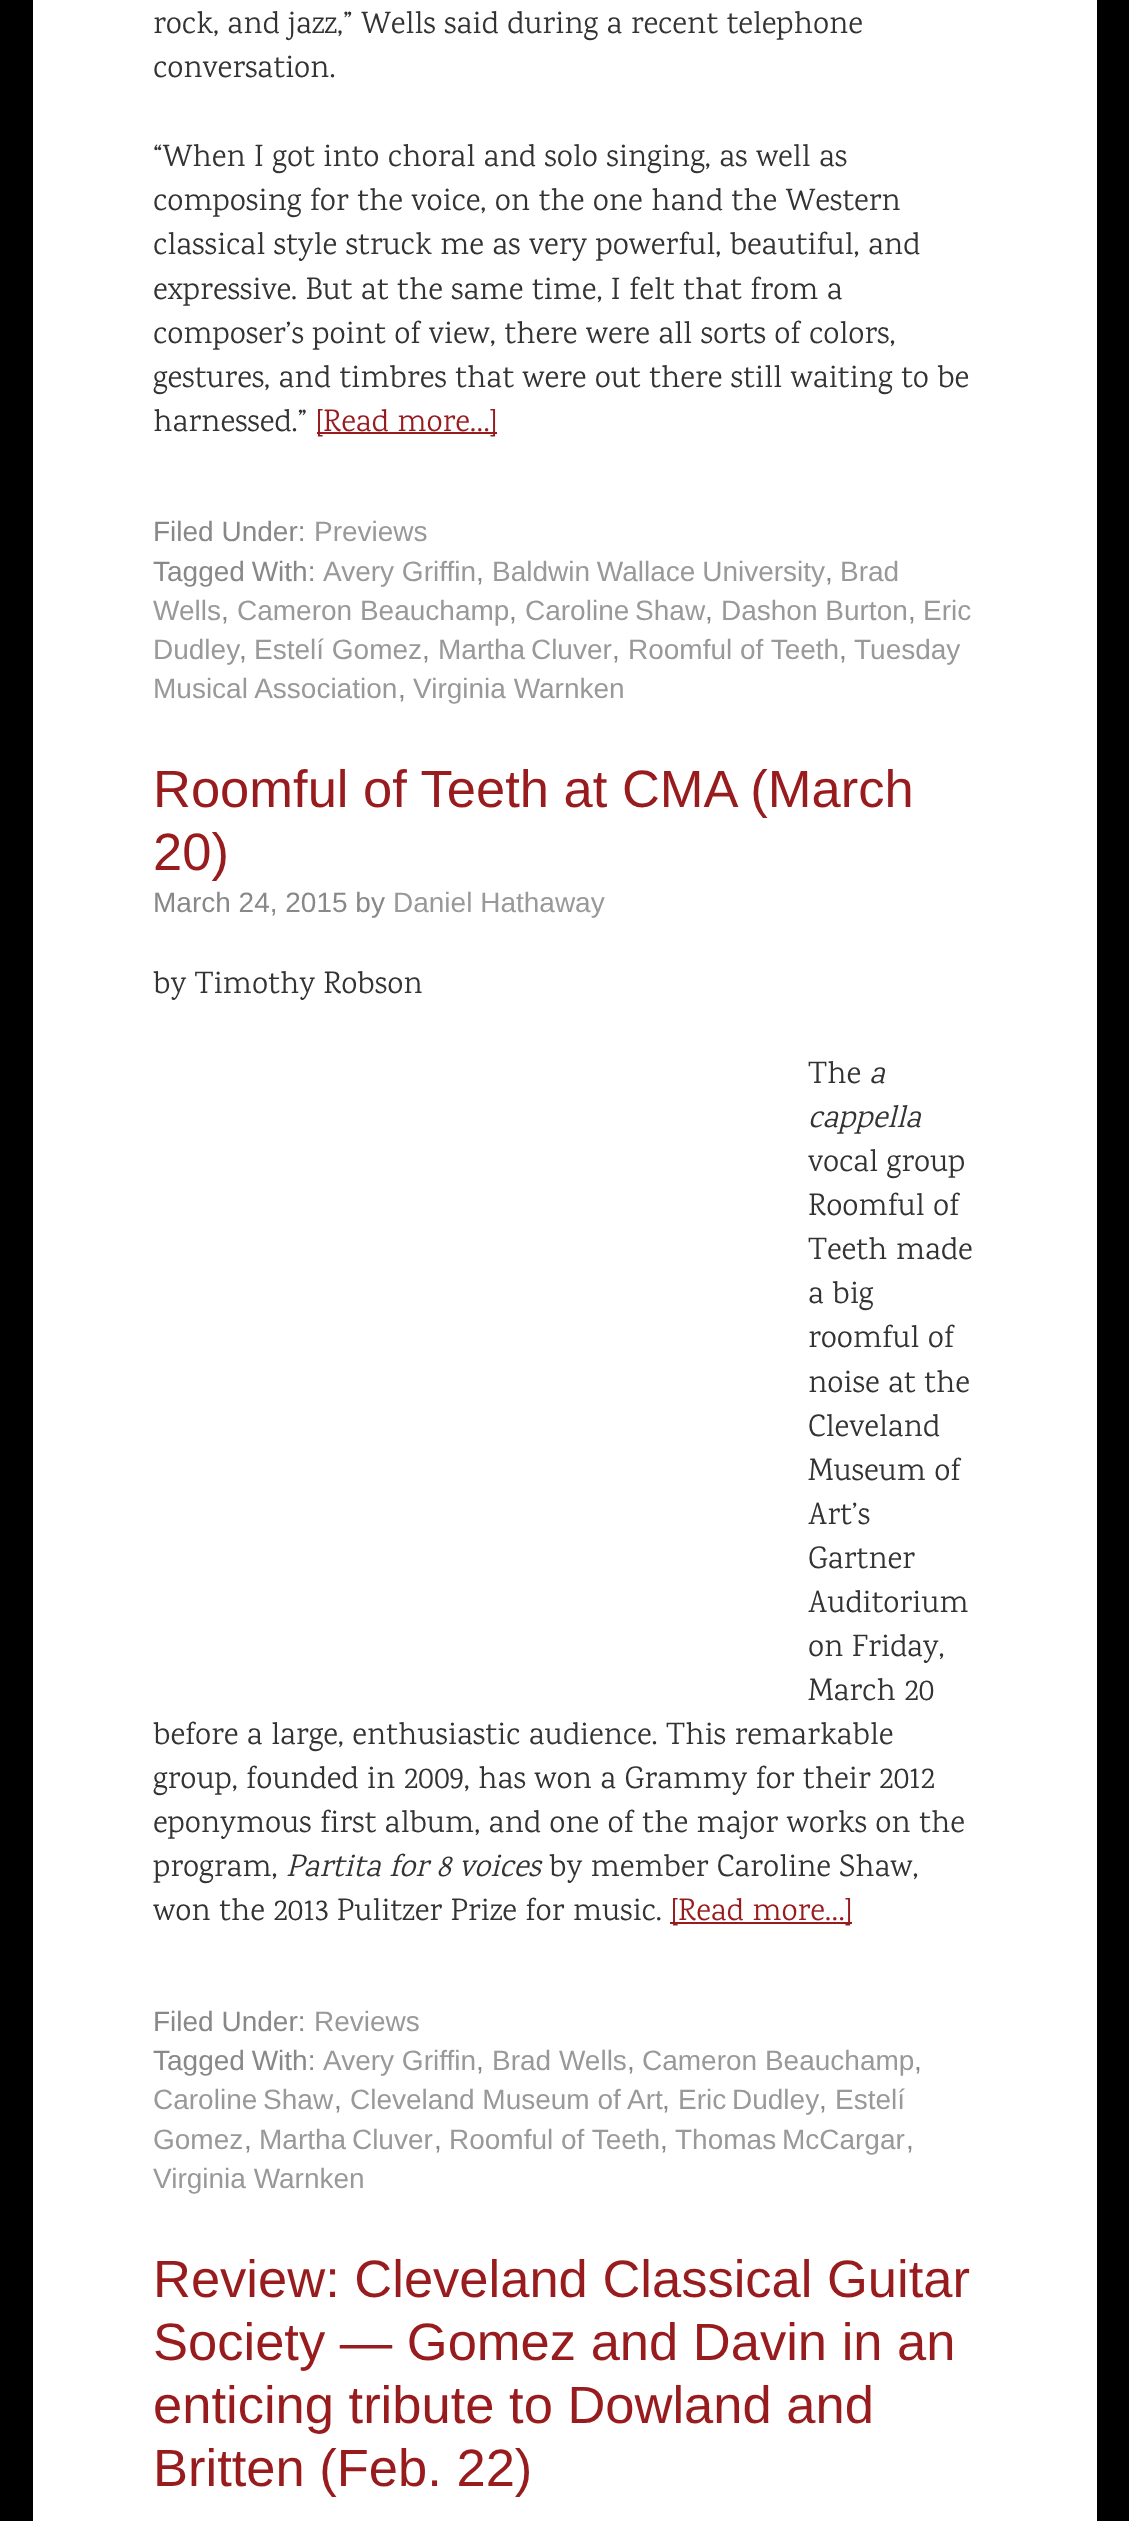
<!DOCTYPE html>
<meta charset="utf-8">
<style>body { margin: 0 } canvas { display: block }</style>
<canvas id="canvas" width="1129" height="2521"></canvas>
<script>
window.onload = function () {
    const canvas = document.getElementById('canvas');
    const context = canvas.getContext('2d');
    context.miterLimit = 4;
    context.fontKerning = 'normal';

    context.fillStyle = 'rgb(0, 0, 0)';
    context.fillRect(0, 0, 1129, 2521);
    context.fillStyle = 'rgb(255, 255, 255)';
    context.fillRect(33, 0, 1064, 2521);
    context.fillStyle = 'rgb(152, 27, 30)';
    context.fillRect(317, 432, 180, 2);
    context.fillRect(670, 1922, 182, 2);
    context.font = '31.5px Karma';
    context.fillStyle = 'rgb(51, 51, 51)';
    context.fillText('rock, and jazz,” Wells said during a recent telephone', 153, 33);
    context.fillText('conversation.', 153, 77);
    context.fillText('“When I got into choral and solo singing, as well as', 153, 166);
    context.fillText('composing for the voice, on the one hand the Western', 153, 210);
    context.fillText('classical style struck me as very powerful, beautiful, and', 153, 254);
    context.fillText('expressive. But at the same time, I felt that from a', 153, 299);
    context.fillText('composer’s point of view, there were all sorts of colors,', 153, 343);
    context.fillText('gestures, and timbres that were out there still waiting to be', 153, 387);
    context.fillText('harnessed.”', 153, 431);
    context.fillStyle = 'rgb(152, 27, 30)';
    context.fillText('[Read more…]', 316, 431);
    context.font = '28px Liberation Sans';
    context.fillStyle = 'rgb(136, 136, 136)';
    context.fillText('Filed Under:', 153, 541);
    context.fillStyle = 'rgb(153, 153, 153)';
    context.fillText('Previews', 314, 541);
    context.wordSpacing = '-1px';
    context.fillStyle = 'rgb(136, 136, 136)';
    context.fillText('Tagged With:', 153, 581);
    context.wordSpacing = '0px';
    context.fillStyle = 'rgb(153, 153, 153)';
    context.fillText('Avery Griffin', 323, 581);
    context.fillStyle = 'rgb(136, 136, 136)';
    context.fillText(',', 476, 581);
    context.wordSpacing = '-1px';
    context.fillStyle = 'rgb(153, 153, 153)';
    context.fillText('Baldwin Wallace University', 492, 581);
    context.wordSpacing = '0px';
    context.fillStyle = 'rgb(136, 136, 136)';
    context.fillText(',', 825, 581);
    context.fillStyle = 'rgb(153, 153, 153)';
    context.fillText('Brad', 840, 581);
    context.fillText('Wells', 153, 620);
    context.fillStyle = 'rgb(136, 136, 136)';
    context.fillText(',', 221, 620);
    context.fillStyle = 'rgb(153, 153, 153)';
    context.fillText('Cameron Beauchamp', 237, 620);
    context.fillStyle = 'rgb(136, 136, 136)';
    context.fillText(',', 509, 620);
    context.wordSpacing = '-2px';
    context.fillStyle = 'rgb(153, 153, 153)';
    context.fillText('Caroline Shaw', 525, 620);
    context.wordSpacing = '0px';
    context.fillStyle = 'rgb(136, 136, 136)';
    context.fillText(',', 705, 620);
    context.fillStyle = 'rgb(153, 153, 153)';
    context.fillText('Dashon Burton', 721, 620);
    context.fillStyle = 'rgb(136, 136, 136)';
    context.fillText(',', 908, 620);
    context.fillStyle = 'rgb(153, 153, 153)';
    context.fillText('Eric', 923, 620);
    context.fillText('Dudley', 153, 659);
    context.fillStyle = 'rgb(136, 136, 136)';
    context.fillText(',', 239, 659);
    context.fillStyle = 'rgb(153, 153, 153)';
    context.fillText('Estelí Gomez', 254, 659);
    context.fillStyle = 'rgb(136, 136, 136)';
    context.fillText(',', 422, 659);
    context.wordSpacing = '-2px';
    context.fillStyle = 'rgb(153, 153, 153)';
    context.fillText('Martha Cluver', 438, 659);
    context.wordSpacing = '0px';
    context.fillStyle = 'rgb(136, 136, 136)';
    context.fillText(',', 612, 659);
    context.fillStyle = 'rgb(153, 153, 153)';
    context.fillText('Roomful of Teeth', 628, 659);
    context.fillStyle = 'rgb(136, 136, 136)';
    context.fillText(',', 839, 659);
    context.fillStyle = 'rgb(153, 153, 153)';
    context.fillText('Tuesday', 854, 659);
    context.fillText('Musical Association', 153, 698);
    context.fillStyle = 'rgb(136, 136, 136)';
    context.fillText(',', 398, 698);
    context.fillStyle = 'rgb(153, 153, 153)';
    context.fillText('Virginia Warnken', 413, 698);
    context.font = '52.5px Liberation Sans';
    context.fillStyle = 'rgb(152, 27, 30)';
    context.fillText('Roomful of Teeth at CMA (March', 153, 807);
    context.fillText('20)', 153, 870);
    context.font = '28px Liberation Sans';
    context.fillStyle = 'rgb(136, 136, 136)';
    context.fillText('March 24, 2015 by', 153, 912);
    context.fillStyle = 'rgb(153, 153, 153)';
    context.fillText('Daniel Hathaway', 393, 912);
    context.font = '31.5px Karma';
    context.fillStyle = 'rgb(51, 51, 51)';
    context.fillText('by Timothy Robson', 153, 993);
    context.fillText('The', 808, 1083);
    context.font = 'italic 31.5px Karma';
    context.fillText('a', 869, 1083);
    context.fillText('cappella', 808, 1127);
    context.font = '31.5px Karma';
    context.fillText('vocal group', 808, 1171);
    context.fillText('Roomful of', 808, 1215);
    context.fillText('Teeth made', 808, 1259);
    context.fillText('a big', 808, 1303);
    context.fillText('roomful of', 808, 1347);
    context.fillText('noise at the', 808, 1392);
    context.fillText('Cleveland', 808, 1436);
    context.fillText('Museum of', 808, 1480);
    context.fillText('Art’s', 808, 1524);
    context.fillText('Gartner', 808, 1568);
    context.fillText('Auditorium', 808, 1612);
    context.fillText('on Friday,', 808, 1656);
    context.fillText('March 20', 808, 1700);
    context.fillText('before a large, enthusiastic audience. This remarkable', 153, 1744);
    context.fillText('group, founded in 2009, has won a Grammy for their 2012', 153, 1788);
    context.fillText('eponymous first album, and one of the major works on the', 153, 1832);
    context.fillText('program,', 153, 1876);
    context.font = 'italic 31.5px Karma';
    context.fillText('Partita for 8 voices', 286, 1876);
    context.font = '31.5px Karma';
    context.fillText('by member Caroline Shaw,', 549, 1876);
    context.fillText('won the 2013 Pulitzer Prize for music.', 153, 1920);
    context.fillStyle = 'rgb(152, 27, 30)';
    context.fillText('[Read more…]', 671, 1920);
    context.font = '28px Liberation Sans';
    context.fillStyle = 'rgb(136, 136, 136)';
    context.fillText('Filed Under:', 153, 2031);
    context.fillStyle = 'rgb(153, 153, 153)';
    context.fillText('Reviews', 314, 2031);
    context.wordSpacing = '-1px';
    context.fillStyle = 'rgb(136, 136, 136)';
    context.fillText('Tagged With:', 153, 2070);
    context.wordSpacing = '0px';
    context.fillStyle = 'rgb(153, 153, 153)';
    context.fillText('Avery Griffin', 323, 2070);
    context.fillStyle = 'rgb(136, 136, 136)';
    context.fillText(',', 476, 2070);
    context.fillStyle = 'rgb(153, 153, 153)';
    context.fillText('Brad Wells', 492, 2070);
    context.fillStyle = 'rgb(136, 136, 136)';
    context.fillText(',', 627, 2070);
    context.fillStyle = 'rgb(153, 153, 153)';
    context.fillText('Cameron Beauchamp', 642, 2070);
    context.fillStyle = 'rgb(136, 136, 136)';
    context.fillText(',', 914, 2070);
    context.wordSpacing = '-2px';
    context.fillStyle = 'rgb(153, 153, 153)';
    context.fillText('Caroline Shaw', 153, 2109);
    context.wordSpacing = '0px';
    context.fillStyle = 'rgb(136, 136, 136)';
    context.fillText(',', 334, 2109);
    context.fillStyle = 'rgb(153, 153, 153)';
    context.fillText('Cleveland Museum of Art', 350, 2109);
    context.fillStyle = 'rgb(136, 136, 136)';
    context.fillText(',', 662, 2109);
    context.wordSpacing = '-2px';
    context.fillStyle = 'rgb(153, 153, 153)';
    context.fillText('Eric Dudley', 678, 2109);
    context.wordSpacing = '0px';
    context.fillStyle = 'rgb(136, 136, 136)';
    context.fillText(',', 819, 2109);
    context.fillStyle = 'rgb(153, 153, 153)';
    context.fillText('Estelí', 835, 2109);
    context.fillText('Gomez', 153, 2149);
    context.fillStyle = 'rgb(136, 136, 136)';
    context.fillText(',', 244, 2149);
    context.wordSpacing = '-2px';
    context.fillStyle = 'rgb(153, 153, 153)';
    context.fillText('Martha Cluver', 259, 2149);
    context.wordSpacing = '0px';
    context.fillStyle = 'rgb(136, 136, 136)';
    context.fillText(',', 434, 2149);
    context.fillStyle = 'rgb(153, 153, 153)';
    context.fillText('Roomful of Teeth', 449, 2149);
    context.fillStyle = 'rgb(136, 136, 136)';
    context.fillText(',', 660, 2149);
    context.wordSpacing = '-2px';
    context.fillStyle = 'rgb(153, 153, 153)';
    context.fillText('Thomas McCargar', 675, 2149);
    context.wordSpacing = '0px';
    context.fillStyle = 'rgb(136, 136, 136)';
    context.fillText(',', 906, 2149);
    context.fillStyle = 'rgb(153, 153, 153)';
    context.fillText('Virginia Warnken', 153, 2188);
    context.font = '52.5px Liberation Sans';
    context.fillStyle = 'rgb(152, 27, 30)';
    context.fillText('Review: Cleveland Classical Guitar', 153, 2297);
    context.fillText('Society — Gomez and Davin in an', 153, 2360);
    context.fillText('enticing tribute to Dowland and', 153, 2423);
    context.fillText('Britten (Feb. 22)', 153, 2486);
};
</script>
